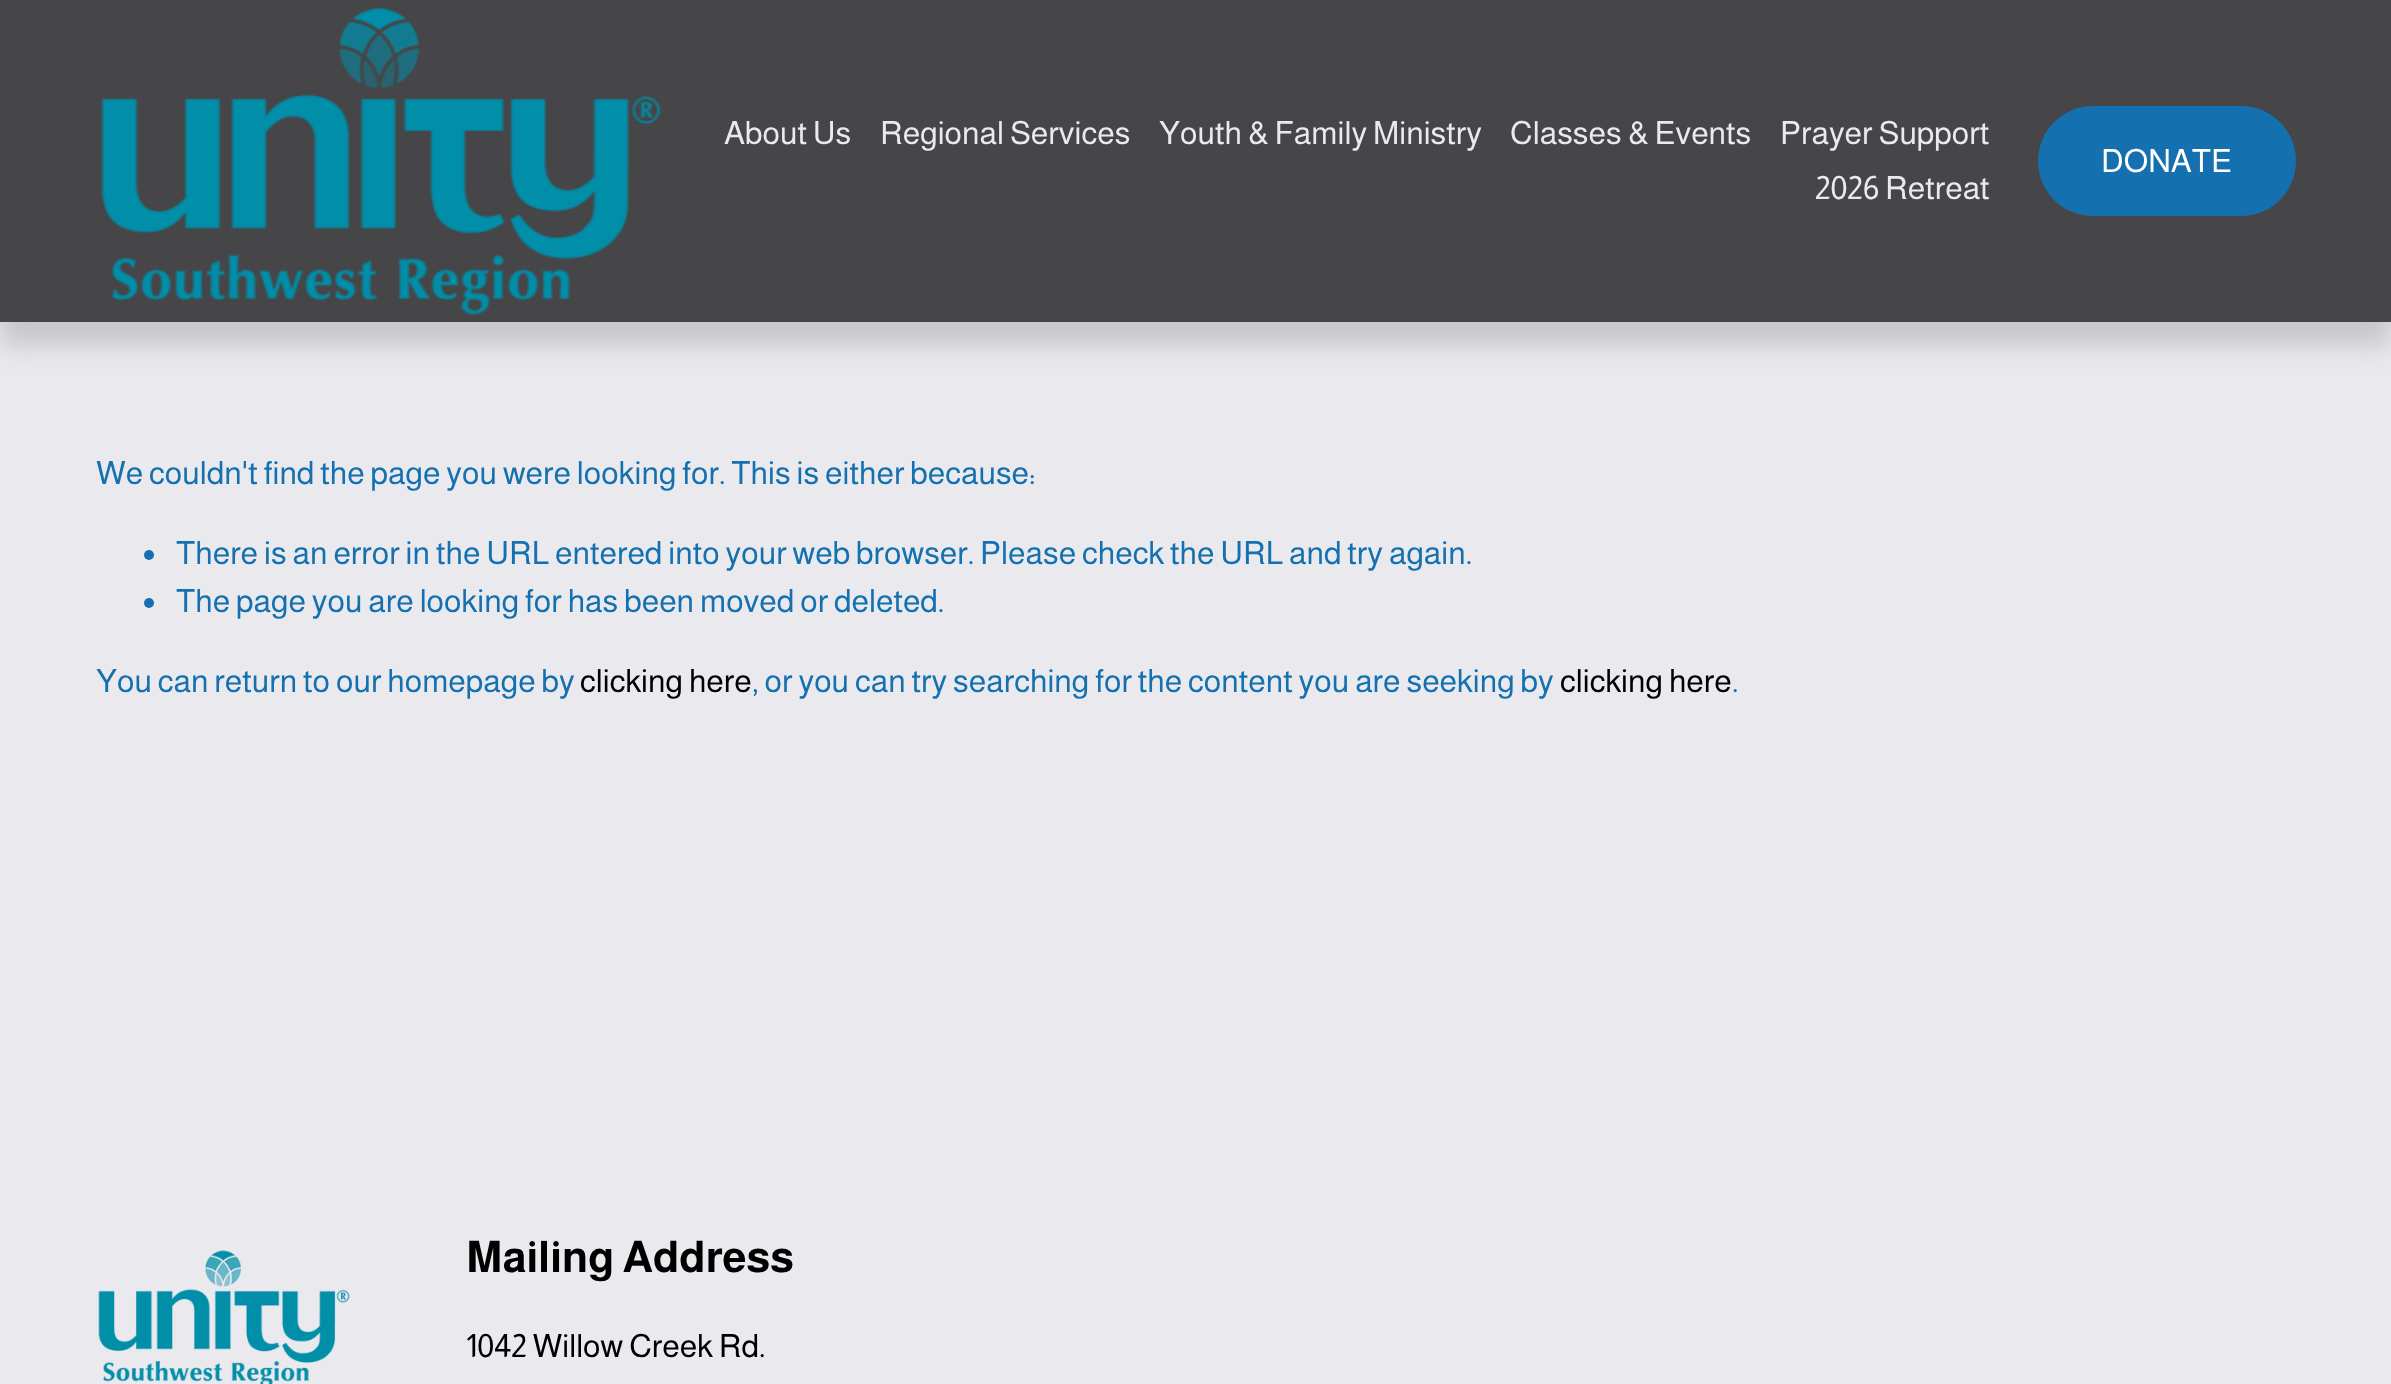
<!DOCTYPE html>
<meta charset="utf-8">
<style>body { margin: 0 } canvas { display: block }</style>
<canvas id="canvas" width="2391" height="1384"></canvas>
<img id="img1" src="images/1.png" hidden>
<img id="img2" src="images/2.png" hidden>
<script>
window.onload = function () {
    const canvas = document.getElementById('canvas');
    const context = canvas.getContext('2d');
    context.miterLimit = 4;
    context.fontKerning = 'normal';

    context.fillStyle = 'rgb(234, 234, 238)';
    context.fillRect(0, 0, 2391, 1384);
    context.fillStyle = 'rgb(199, 199, 202)';
    context.filter = 'blur(12px)';
    context.beginPath();
    context.rect(0, 24, 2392, 322);
    context.fill();
    context.filter = 'none';
    context.fillStyle = 'rgb(70, 70, 72)';
    context.fillRect(0, 0, 2391, 322);
    context.drawImage(document.getElementById('img1'), 101, 7, 561, 309);
    context.fillStyle = 'rgb(20, 112, 175)';
    context.beginPath();
    context.roundRect(2038, 106, 258, 110, 55);
    context.fill();
    context.beginPath();
    context.arc(149, 555, 5, 0, 2 * Math.PI);
    context.fill();
    context.beginPath();
    context.arc(149, 603, 5, 0, 2 * Math.PI);
    context.fill();
    context.drawImage(document.getElementById('img2'), 98, 1250, 252, 134);
    context.font = '32px Almarai';
    context.fillStyle = 'rgb(234, 234, 238)';
    context.fillText('About Us', 724, 144);
    context.fillText('Regional Services', 880, 144);
    context.fillText('Youth & Family Ministry', 1159, 144);
    context.fillText('Classes & Events', 1510, 144);
    context.fillText('Prayer Support', 1780, 144);
    context.fillText('2026 Retreat', 1815, 199);
    context.fillStyle = 'rgb(255, 255, 255)';
    context.fillText('DONATE', 2101, 172);
    context.fillStyle = 'rgb(20, 112, 175)';
    context.fillText('We couldn\'t find the page you were looking for. This is either because:', 96, 484);
    context.fillText('There is an error in the URL entered into your web browser. Please check the URL and try again.', 176, 564);
    context.fillText('The page you are looking for has been moved or deleted.', 176, 612);
    context.fillText('You can return to our homepage by', 96, 692);
    context.fillStyle = 'rgb(0, 0, 0)';
    context.fillText('clicking here', 580, 692);
    context.fillStyle = 'rgb(20, 112, 175)';
    context.fillText(', or you can try searching for the content you are seeking by', 752, 692);
    context.fillStyle = 'rgb(0, 0, 0)';
    context.fillText('clicking here', 1560, 692);
    context.fillStyle = 'rgb(20, 112, 175)';
    context.fillText('.', 1732, 692);
    context.font = 'bold 43.5px Almarai';
    context.fillStyle = 'rgb(0, 0, 0)';
    context.fillText('Mailing Address', 466, 1272);
    context.font = '32px Almarai';
    context.fillText('1042 Willow Creek Rd.', 466, 1357);
};
</script>
